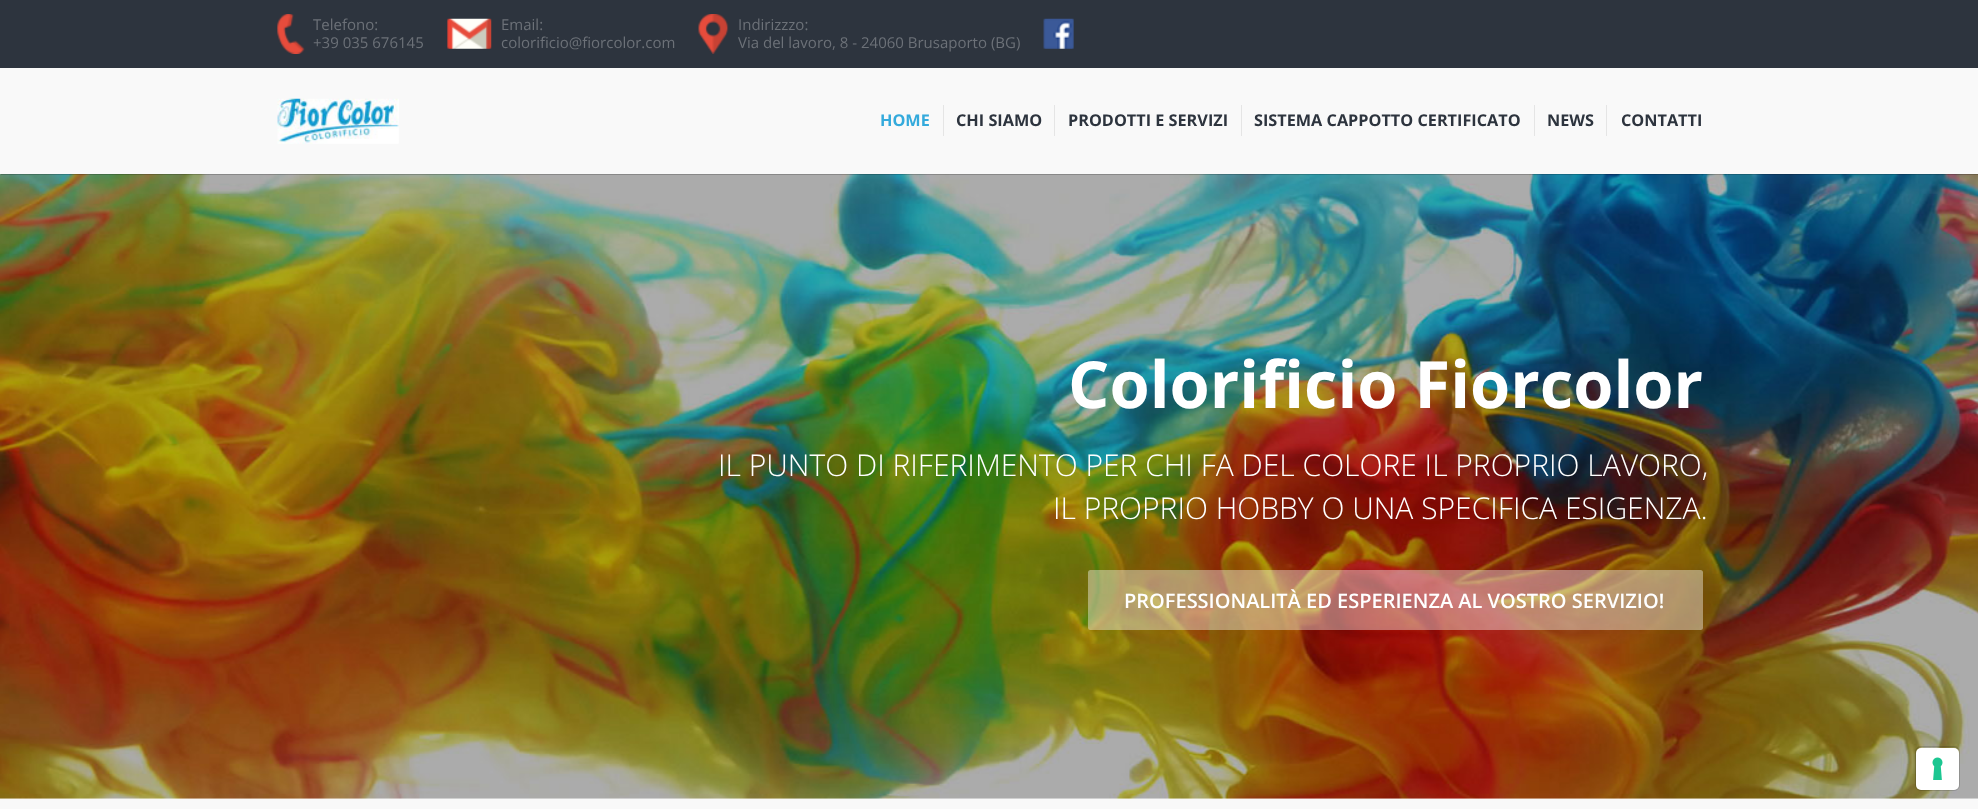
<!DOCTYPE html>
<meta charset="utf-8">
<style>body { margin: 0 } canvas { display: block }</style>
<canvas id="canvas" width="1978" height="809"></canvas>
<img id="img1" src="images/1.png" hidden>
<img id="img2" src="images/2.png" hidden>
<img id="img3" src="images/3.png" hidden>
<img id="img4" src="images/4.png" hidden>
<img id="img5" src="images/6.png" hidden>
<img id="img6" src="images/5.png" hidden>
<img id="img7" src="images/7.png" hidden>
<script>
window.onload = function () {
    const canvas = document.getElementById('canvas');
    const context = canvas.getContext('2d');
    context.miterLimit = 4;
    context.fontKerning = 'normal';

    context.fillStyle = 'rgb(255, 255, 255)';
    context.fillRect(0, 0, 1978, 809);
    context.fillStyle = 'rgb(45, 52, 62)';
    context.fillRect(0, 0, 1978, 68);
    context.drawImage(document.getElementById('img1'), 277, 14, 28, 40);
    context.drawImage(document.getElementById('img2'), 447, 18, 45, 31);
    context.drawImage(document.getElementById('img3'), 698, 14, 31, 40);
    context.drawImage(document.getElementById('img4'), 1043, 18, 31, 31);
    context.drawImage(document.getElementById('img5'), 0, 174, 1978, 625);
    context.fillStyle = 'rgba(0, 0, 0, 0.2)';
    context.filter = 'blur(0.5px)';
    context.beginPath();
    context.rect(1, 69, 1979, 106);
    context.fill();
    context.filter = 'none';
    context.fillStyle = 'rgb(249, 249, 249)';
    context.fillRect(0, 68, 1978, 106);
    context.drawImage(document.getElementById('img6'), 277, 98, 122, 46);
    context.fillStyle = 'rgb(229, 229, 229)';
    context.fillRect(943, 105, 1, 31);
    context.fillRect(1054, 105, 1, 31);
    context.fillRect(1241, 105, 1, 31);
    context.fillRect(1534, 105, 1, 31);
    context.fillRect(1606, 105, 1, 31);
    context.fillStyle = 'rgba(255, 255, 255, 0.4)';
    context.beginPath();
    context.roundRect(1088, 570, 615, 60, 2.5);
    context.fill();
    context.beginPath();
    context.roundRect(1915.5, 746.5, 44, 44, 5.5);
    context.strokeStyle = 'rgba(0, 0, 0, 0.15)';
    context.stroke();
    context.fillStyle = 'rgb(255, 255, 255)';
    context.beginPath();
    context.roundRect(1916, 748, 43, 42, 5);
    context.fill();
    context.drawImage(document.getElementById('img7'), 1932, 757, 11, 23);
    context.fillStyle = 'rgb(249, 249, 249)';
    context.fillRect(0, 799, 1978, 10);
    context.font = '15px Open Sans';
    context.fillStyle = 'rgb(108, 113, 120)';
    context.fillText('Telefono:', 313, 30);
    context.fillText('+39 035 676145', 313, 48);
    context.fillText('Email:', 501, 30);
    context.fillText('colorificio@fiorcolor.com', 501, 48);
    context.fillText('Indirizzzo:', 738, 30);
    context.fillText('Via del lavoro, 8 - 24060 Brusaporto (BG)', 738, 48);
    context.font = 'bold 16.25px Open Sans';
    context.fillStyle = 'rgb(52, 170, 220)';
    context.fillText('HOME', 880, 126);
    context.fillStyle = 'rgb(45, 52, 62)';
    context.fillText('CHI SIAMO', 956, 126);
    context.fillText('PRODOTTI E SERVIZI', 1068, 126);
    context.fillText('SISTEMA CAPPOTTO CERTIFICATO', 1254, 126);
    context.fillText('NEWS', 1547, 126);
    context.fillText('CONTATTI', 1621, 126);
    context.font = 'bold 65px Open Sans';
    context.fillStyle = 'rgb(255, 255, 255)';
    context.fillText('Colorificio Fiorcolor', 1068, 408);
    context.font = '300 30px Open Sans';
    context.fillText('IL PUNTO DI RIFERIMENTO PER CHI FA DEL COLORE IL PROPRIO LAVORO,', 718, 476);
    context.fillText('IL PROPRIO HOBBY O UNA SPECIFICA ESIGENZA.', 1053, 519);
    context.font = '600 20px Open Sans';
    context.fillText('PROFESSIONALITÀ ED ESPERIENZA AL VOSTRO SERVIZIO!', 1124, 608);
};
</script>
